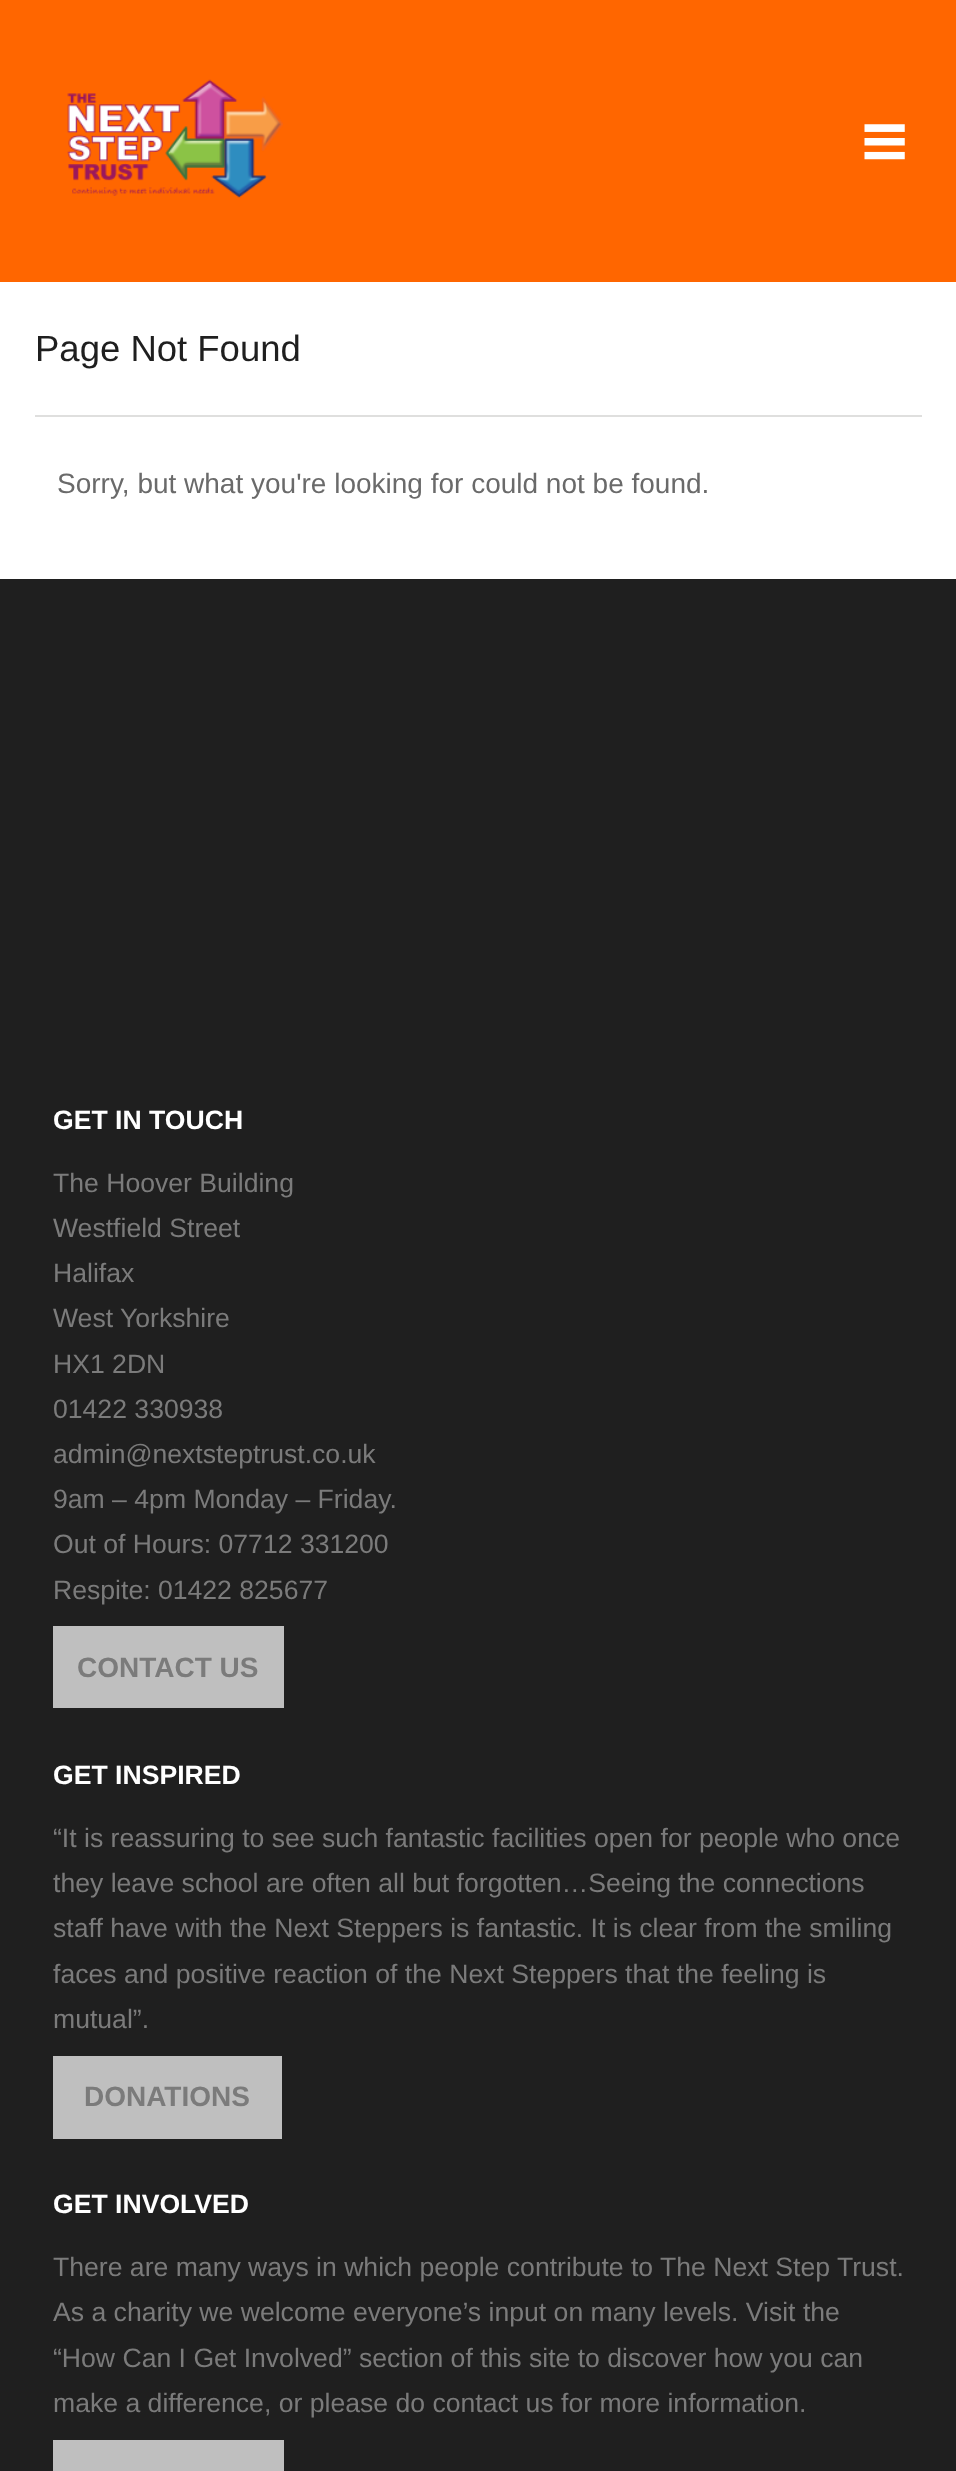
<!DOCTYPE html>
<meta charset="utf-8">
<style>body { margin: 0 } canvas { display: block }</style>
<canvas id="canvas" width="956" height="2471"></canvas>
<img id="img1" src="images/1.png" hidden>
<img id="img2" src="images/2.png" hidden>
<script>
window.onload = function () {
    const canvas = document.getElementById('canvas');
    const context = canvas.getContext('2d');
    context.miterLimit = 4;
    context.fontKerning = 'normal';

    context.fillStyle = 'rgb(255, 255, 255)';
    context.fillRect(0, 0, 956, 2471);
    context.fillStyle = 'rgb(255, 102, 0)';
    context.fillRect(0, 0, 956, 282);
    context.drawImage(document.getElementById('img1'), 67, 79, 216, 119);
    context.drawImage(document.getElementById('img2'), 864, 124, 41, 36);
    context.fillStyle = 'rgb(223, 223, 222)';
    context.fillRect(35, 415, 887, 2);
    context.fillStyle = 'rgb(31, 31, 31)';
    context.fillRect(0, 579, 956, 1892);
    context.fillStyle = 'rgb(191, 191, 191)';
    context.fillRect(53, 1626, 231, 82);
    context.fillRect(53, 2056, 229, 83);
    context.fillRect(53, 2440, 231, 31);
    context.font = '36.5px Liberation Sans';
    context.fillStyle = 'rgb(31, 31, 31)';
    context.fillText('Page Not Found', 35, 361);
    context.font = '28px Liberation Sans';
    context.fillStyle = 'rgb(106, 106, 106)';
    context.fillText('Sorry, but what you\'re looking for could not be found.', 57, 493);
    context.font = 'bold 26.6px Liberation Sans';
    context.fillStyle = 'rgb(255, 255, 255)';
    context.fillText('GET IN TOUCH', 53, 1129);
    context.font = '26.6px Liberation Sans';
    context.fillStyle = 'rgb(123, 123, 123)';
    context.fillText('The Hoover Building', 53, 1192);
    context.fillText('Westfield Street', 53, 1237);
    context.fillText('Halifax', 53, 1282);
    context.fillText('West Yorkshire', 53, 1327);
    context.fillText('HX1 2DN', 53, 1373);
    context.fillText('01422 330938', 53, 1418);
    context.fillText('admin@nextsteptrust.co.uk', 53, 1463);
    context.fillText('9am – 4pm Monday – Friday.', 53, 1508);
    context.fillText('Out of Hours: 07712 331200', 53, 1553);
    context.fillText('Respite: 01422 825677', 53, 1599);
    context.font = 'bold 28px Liberation Sans';
    context.fillText('CONTACT US', 77, 1677);
    context.font = 'bold 26.6px Liberation Sans';
    context.fillStyle = 'rgb(255, 255, 255)';
    context.fillText('GET INSPIRED', 53, 1784);
    context.font = '26.6px Liberation Sans';
    context.fillStyle = 'rgb(123, 123, 123)';
    context.fillText('“It is reassuring to see such fantastic facilities open for people who once', 53, 1847);
    context.fillText('they leave school are often all but forgotten…Seeing the connections', 53, 1892);
    context.fillText('staff have with the Next Steppers is fantastic. It is clear from the smiling', 53, 1937);
    context.fillText('faces and positive reaction of the Next Steppers that the feeling is', 53, 1983);
    context.fillText('mutual”.', 53, 2028);
    context.font = 'bold 28px Liberation Sans';
    context.fillText('DONATIONS', 84, 2106);
    context.font = 'bold 26.6px Liberation Sans';
    context.fillStyle = 'rgb(255, 255, 255)';
    context.fillText('GET INVOLVED', 53, 2213);
    context.font = '26.6px Liberation Sans';
    context.fillStyle = 'rgb(123, 123, 123)';
    context.fillText('There are many ways in which people contribute to The Next Step Trust.', 53, 2276);
    context.fillText('As a charity we welcome everyone’s input on many levels. Visit the', 53, 2321);
    context.fillText('“How Can I Get Involved” section of this site to discover how you can', 53, 2367);
    context.fillText('make a difference, or please do contact us for more information.', 53, 2412);
};
</script>
